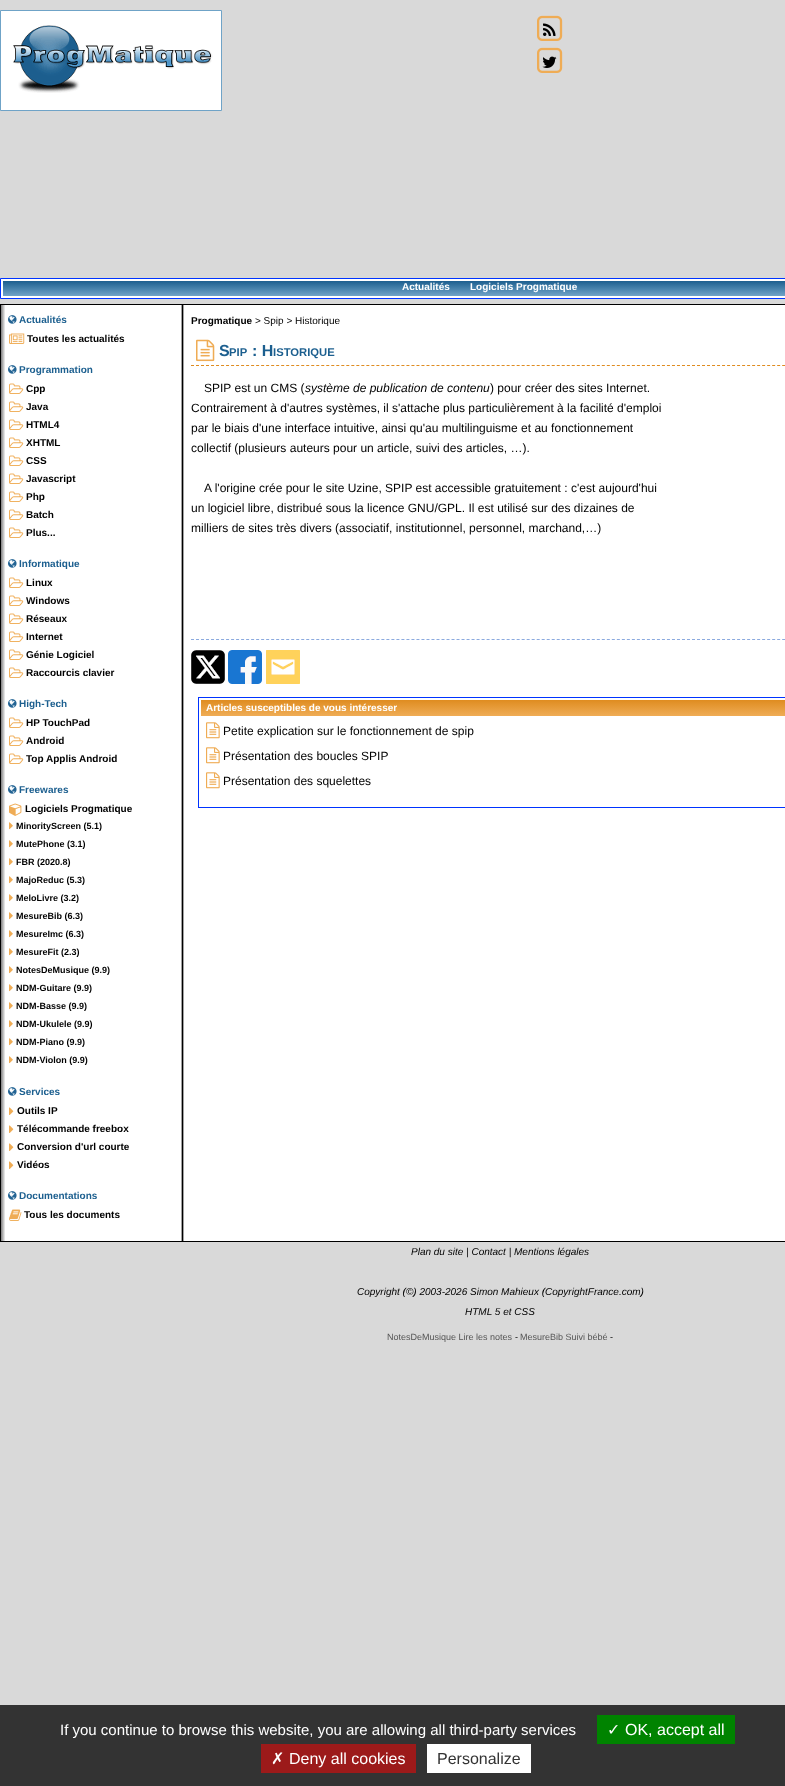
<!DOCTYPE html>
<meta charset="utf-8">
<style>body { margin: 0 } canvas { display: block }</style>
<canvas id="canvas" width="785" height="1786"></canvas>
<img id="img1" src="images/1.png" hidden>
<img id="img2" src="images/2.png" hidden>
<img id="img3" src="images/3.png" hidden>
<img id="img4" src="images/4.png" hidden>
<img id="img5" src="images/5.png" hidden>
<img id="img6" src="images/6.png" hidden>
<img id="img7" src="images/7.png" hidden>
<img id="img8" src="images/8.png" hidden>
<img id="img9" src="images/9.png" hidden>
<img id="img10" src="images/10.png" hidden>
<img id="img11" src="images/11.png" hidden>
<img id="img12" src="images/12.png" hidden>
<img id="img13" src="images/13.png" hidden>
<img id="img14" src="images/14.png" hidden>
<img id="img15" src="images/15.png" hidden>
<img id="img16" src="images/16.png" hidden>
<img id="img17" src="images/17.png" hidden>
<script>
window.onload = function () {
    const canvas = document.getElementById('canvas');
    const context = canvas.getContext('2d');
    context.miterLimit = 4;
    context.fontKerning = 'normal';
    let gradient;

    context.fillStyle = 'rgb(217, 217, 217)';
    context.fillRect(0, 0, 785, 1786);
    context.fillStyle = 'rgb(255, 255, 255)';
    context.beginPath();
    context.rect(0.5, 10.5, 221, 100);
    context.fill();
    context.strokeStyle = 'rgb(111, 163, 199)';
    context.stroke();
    context.drawImage(document.getElementById('img1'), 13, 25, 200, 68);
    context.drawImage(document.getElementById('img2'), 537, 15, 26, 26);
    context.drawImage(document.getElementById('img3'), 543, 23, 13, 13);
    context.drawImage(document.getElementById('img2'), 537, 47, 26, 26);
    context.drawImage(document.getElementById('img4'), 542, 56, 15, 12);
    context.beginPath();
    context.rect(0.5, 278.5, 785, 20);
    context.fill();
    context.strokeStyle = 'rgb(0, 51, 255)';
    context.stroke();
    gradient = context.createLinearGradient(500, 281, 500, 296);
    gradient.addColorStop(0, 'rgb(28, 95, 143)');
    gradient.addColorStop(0.99, 'rgb(111, 163, 199)');
    context.fillStyle = gradient;
    context.fillRect(3, 281, 782, 15);
    context.fillStyle = 'rgb(255, 255, 255)';
    context.fillRect(6, 305, 779, 936);
    context.drawImage(document.getElementById('img5'), 1, 305, 183, 936);
    context.strokeStyle = 'rgb(0, 0, 0)';
    context.strokeRect(0.5, 304.5, 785, 937);
    context.drawImage(document.getElementById('img6'), 8, 315, 9, 9);
    context.drawImage(document.getElementById('img7'), 9, 333, 16, 11);
    context.drawImage(document.getElementById('img6'), 8, 365, 9, 9);
    context.drawImage(document.getElementById('img8'), 9, 383, 15, 11);
    context.drawImage(document.getElementById('img8'), 9, 401, 15, 11);
    context.drawImage(document.getElementById('img8'), 9, 419, 15, 11);
    context.drawImage(document.getElementById('img8'), 9, 437, 15, 11);
    context.drawImage(document.getElementById('img8'), 9, 455, 15, 11);
    context.drawImage(document.getElementById('img8'), 9, 473, 15, 11);
    context.drawImage(document.getElementById('img8'), 9, 491, 15, 11);
    context.drawImage(document.getElementById('img8'), 9, 509, 15, 11);
    context.drawImage(document.getElementById('img8'), 9, 527, 15, 11);
    context.drawImage(document.getElementById('img6'), 8, 559, 9, 9);
    context.drawImage(document.getElementById('img8'), 9, 577, 15, 11);
    context.drawImage(document.getElementById('img8'), 9, 595, 15, 11);
    context.drawImage(document.getElementById('img8'), 9, 613, 15, 11);
    context.drawImage(document.getElementById('img8'), 9, 631, 15, 11);
    context.drawImage(document.getElementById('img8'), 9, 649, 15, 11);
    context.drawImage(document.getElementById('img8'), 9, 667, 15, 11);
    context.drawImage(document.getElementById('img6'), 8, 699, 9, 9);
    context.drawImage(document.getElementById('img8'), 9, 717, 15, 11);
    context.drawImage(document.getElementById('img8'), 9, 735, 15, 11);
    context.drawImage(document.getElementById('img8'), 9, 753, 15, 11);
    context.drawImage(document.getElementById('img6'), 8, 785, 9, 9);
    context.drawImage(document.getElementById('img9'), 9, 803, 13, 13);
    context.drawImage(document.getElementById('img10'), 9, 822, 4, 8);
    context.drawImage(document.getElementById('img10'), 9, 840, 4, 8);
    context.drawImage(document.getElementById('img10'), 9, 858, 4, 8);
    context.drawImage(document.getElementById('img10'), 9, 876, 4, 8);
    context.drawImage(document.getElementById('img10'), 9, 894, 4, 8);
    context.drawImage(document.getElementById('img10'), 9, 912, 4, 8);
    context.drawImage(document.getElementById('img10'), 9, 930, 4, 8);
    context.drawImage(document.getElementById('img10'), 9, 948, 4, 8);
    context.drawImage(document.getElementById('img10'), 9, 966, 4, 8);
    context.drawImage(document.getElementById('img10'), 9, 984, 4, 8);
    context.drawImage(document.getElementById('img10'), 9, 1002, 4, 8);
    context.drawImage(document.getElementById('img10'), 9, 1020, 4, 8);
    context.drawImage(document.getElementById('img10'), 9, 1038, 4, 8);
    context.drawImage(document.getElementById('img10'), 9, 1056, 4, 8);
    context.drawImage(document.getElementById('img6'), 8, 1087, 9, 9);
    context.drawImage(document.getElementById('img11'), 9, 1107, 5, 8);
    context.drawImage(document.getElementById('img11'), 9, 1125, 5, 8);
    context.drawImage(document.getElementById('img11'), 9, 1143, 5, 8);
    context.drawImage(document.getElementById('img11'), 9, 1161, 5, 8);
    context.drawImage(document.getElementById('img6'), 8, 1191, 9, 9);
    context.drawImage(document.getElementById('img12'), 9, 1209, 13, 12);
    context.beginPath();
    context.moveTo(191, 365.5);
    context.lineTo(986, 365.5);
    context.strokeStyle = 'rgb(223, 140, 32)';
    context.setLineDash([3, 2.01]);
    context.stroke();
    context.drawImage(document.getElementById('img13'), 196, 339, 19, 23);
    context.beginPath();
    context.moveTo(191, 639.5);
    context.lineTo(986, 639.5);
    context.strokeStyle = 'rgb(139, 170, 223)';
    context.stroke();
    context.drawImage(document.getElementById('img14'), 191, 650, 34, 34);
    context.drawImage(document.getElementById('img15'), 228, 650, 34, 34);
    context.drawImage(document.getElementById('img16'), 266, 650, 34, 34);
    context.strokeStyle = 'rgb(0, 51, 255)';
    context.setLineDash([]);
    context.strokeRect(198.5, 697.5, 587, 110);
    gradient = context.createLinearGradient(593, 700, 593, 716);
    gradient.addColorStop(0, 'rgb(223, 140, 32)');
    gradient.addColorStop(0.99, 'rgb(239, 172, 85)');
    context.fillStyle = gradient;
    context.fillRect(201, 700, 584, 16);
    context.drawImage(document.getElementById('img17'), 206, 722, 14, 17);
    context.drawImage(document.getElementById('img17'), 206, 747, 14, 17);
    context.drawImage(document.getElementById('img17'), 206, 772, 14, 17);
    context.fillStyle = 'rgb(51, 51, 51)';
    context.fillRect(0, 1705, 785, 81);
    context.fillStyle = 'rgb(0, 131, 0)';
    context.fillRect(597, 1715, 138, 29);
    context.fillStyle = 'rgb(156, 26, 26)';
    context.fillRect(261, 1744, 155, 29);
    context.fillStyle = 'rgb(255, 255, 255)';
    context.fillRect(427, 1744, 104, 29);
    context.font = 'bold 10px Liberation Sans';
    context.fillText('Actualités', 402, 290);
    context.fillText('Logiciels Progmatique', 470, 290);
    context.fillStyle = 'rgb(28, 95, 143)';
    context.fillText('Actualités', 19, 323);
    context.fillStyle = 'rgb(0, 0, 0)';
    context.fillText('Toutes les actualités', 27, 342);
    context.fillStyle = 'rgb(28, 95, 143)';
    context.fillText('Programmation', 19, 373);
    context.fillStyle = 'rgb(0, 0, 0)';
    context.fillText('Cpp', 26, 392);
    context.fillText('Java', 26, 410);
    context.fillText('HTML4', 26, 428);
    context.fillText('XHTML', 26, 446);
    context.fillText('CSS', 26, 464);
    context.fillText('Javascript', 26, 482);
    context.fillText('Php', 26, 500);
    context.fillText('Batch', 26, 518);
    context.fillText('Plus...', 26, 536);
    context.fillStyle = 'rgb(28, 95, 143)';
    context.fillText('Informatique', 19, 567);
    context.fillStyle = 'rgb(0, 0, 0)';
    context.fillText('Linux', 26, 586);
    context.fillText('Windows', 26, 604);
    context.fillText('Réseaux', 26, 622);
    context.fillText('Internet', 26, 640);
    context.fillText('Génie Logiciel', 26, 658);
    context.fillText('Raccourcis clavier', 26, 676);
    context.fillStyle = 'rgb(28, 95, 143)';
    context.fillText('High-Tech', 19, 707);
    context.fillStyle = 'rgb(0, 0, 0)';
    context.fillText('HP TouchPad', 26, 726);
    context.fillText('Android', 26, 744);
    context.fillText('Top Applis Android', 26, 762);
    context.fillStyle = 'rgb(28, 95, 143)';
    context.fillText('Freewares', 19, 793);
    context.fillStyle = 'rgb(0, 0, 0)';
    context.fillText('Logiciels Progmatique', 25, 812);
    context.font = 'bold 9px Liberation Sans';
    context.fillText('MinorityScreen (5.1)', 16, 829);
    context.fillText('MutePhone (3.1)', 16, 847);
    context.fillText('FBR (2020.8)', 16, 865);
    context.fillText('MajoReduc (5.3)', 16, 883);
    context.fillText('MeloLivre (3.2)', 16, 901);
    context.fillText('MesureBib (6.3)', 16, 919);
    context.fillText('MesureImc (6.3)', 16, 937);
    context.fillText('MesureFit (2.3)', 16, 955);
    context.fillText('NotesDeMusique (9.9)', 16, 973);
    context.fillText('NDM-Guitare (9.9)', 16, 991);
    context.fillText('NDM-Basse (9.9)', 16, 1009);
    context.fillText('NDM-Ukulele (9.9)', 16, 1027);
    context.fillText('NDM-Piano (9.9)', 16, 1045);
    context.fillText('NDM-Violon (9.9)', 16, 1063);
    context.font = 'bold 10px Liberation Sans';
    context.fillStyle = 'rgb(28, 95, 143)';
    context.fillText('Services', 19, 1095);
    context.fillStyle = 'rgb(0, 0, 0)';
    context.fillText('Outils IP', 17, 1114);
    context.fillText('Télécommande freebox', 17, 1132);
    context.fillText('Conversion d\'url courte', 17, 1150);
    context.fillText('Vidéos', 17, 1168);
    context.fillStyle = 'rgb(28, 95, 143)';
    context.fillText('Documentations', 19, 1199);
    context.fillStyle = 'rgb(0, 0, 0)';
    context.fillText('Tous les documents', 24, 1218);
    context.fillText('Progmatique', 191, 324);
    context.font = '10px Liberation Sans';
    context.fillText('> Spip > Historique', 255, 324);
    context.font = 'bold 16px Liberation Sans';
    context.fillStyle = 'rgb(28, 95, 143)';
    context.fillText('S', 219, 356);
    context.font = 'bold 11.25px Liberation Sans';
    context.fillText('PIP', 229, 356);
    context.font = 'bold 16px Liberation Sans';
    context.fillText(': H', 252, 356);
    context.font = 'bold 11.25px Liberation Sans';
    context.fillText('ISTORIQUE', 273, 356);
    context.font = '12px Liberation Sans';
    context.fillStyle = 'rgb(0, 0, 0)';
    context.fillText('SPIP est un CMS (', 204, 392);
    context.font = 'italic 12px Liberation Sans';
    context.fillText('système de publication de contenu', 305, 392);
    context.font = '12px Liberation Sans';
    context.fillText(') pour créer des sites Internet.', 490, 392);
    context.fillText('Contrairement à d\'autres systèmes, il s\'attache plus particulièrement à la facilité d\'emploi', 191, 412);
    context.fillText('par le biais d\'une interface intuitive, ainsi qu\'au multilinguisme et au fonctionnement', 191, 432);
    context.fillText('collectif (plusieurs auteurs pour un article, suivi des articles, …).', 191, 452);
    context.fillText('A l\'origine crée pour le site Uzine, SPIP est accessible gratuitement : c\'est aujourd\'hui', 204, 492);
    context.fillText('un logiciel libre, distribué sous la licence GNU/GPL. Il est utilisé sur des dizaines de', 191, 512);
    context.fillText('milliers de sites très divers (associatif, institutionnel, personnel, marchand,…)', 191, 532);
    context.font = 'bold 10px Liberation Sans';
    context.fillStyle = 'rgb(255, 255, 255)';
    context.fillText('Articles susceptibles de vous intéresser', 206, 711);
    context.font = '12px Liberation Sans';
    context.fillStyle = 'rgb(0, 0, 0)';
    context.fillText('Petite explication sur le fonctionnement de spip', 223, 735);
    context.fillText('Présentation des boucles SPIP', 223, 760);
    context.fillText('Présentation des squelettes', 223, 785);
    context.font = 'italic 10px Liberation Sans';
    context.fillText('Plan du site | Contact | Mentions légales', 411, 1255);
    context.fillText('Copyright (©) 2003-2026 Simon Mahieux (CopyrightFrance.com)', 357, 1295);
    context.fillText('HTML 5 et CSS', 465, 1315);
    context.font = '9px Liberation Sans';
    context.fillStyle = 'rgb(85, 85, 85)';
    context.fillText('NotesDeMusique Lire les notes', 387, 1340);
    context.fillStyle = 'rgb(0, 0, 0)';
    context.fillText('-', 515, 1340);
    context.fillStyle = 'rgb(85, 85, 85)';
    context.fillText('MesureBib Suivi bébé', 520, 1340);
    context.fillStyle = 'rgb(0, 0, 0)';
    context.fillText('-', 610, 1340);
    context.font = '15px Liberation Sans';
    context.fillStyle = 'rgb(255, 255, 255)';
    context.fillText('If you continue to browse this website, you are allowing all third-party services', 60, 1735);
    context.font = '16px DejaVu Sans';
    context.fillText('✓', 607, 1735);
    context.font = '16px Liberation Sans';
    context.fillText('OK, accept all', 625, 1735);
    context.font = '16px DejaVu Sans';
    context.fillText('✗', 271, 1764);
    context.font = '16px Liberation Sans';
    context.fillText('Deny all cookies', 289, 1764);
    context.fillStyle = 'rgb(51, 51, 51)';
    context.fillText('Personalize', 437, 1764);
};
</script>
